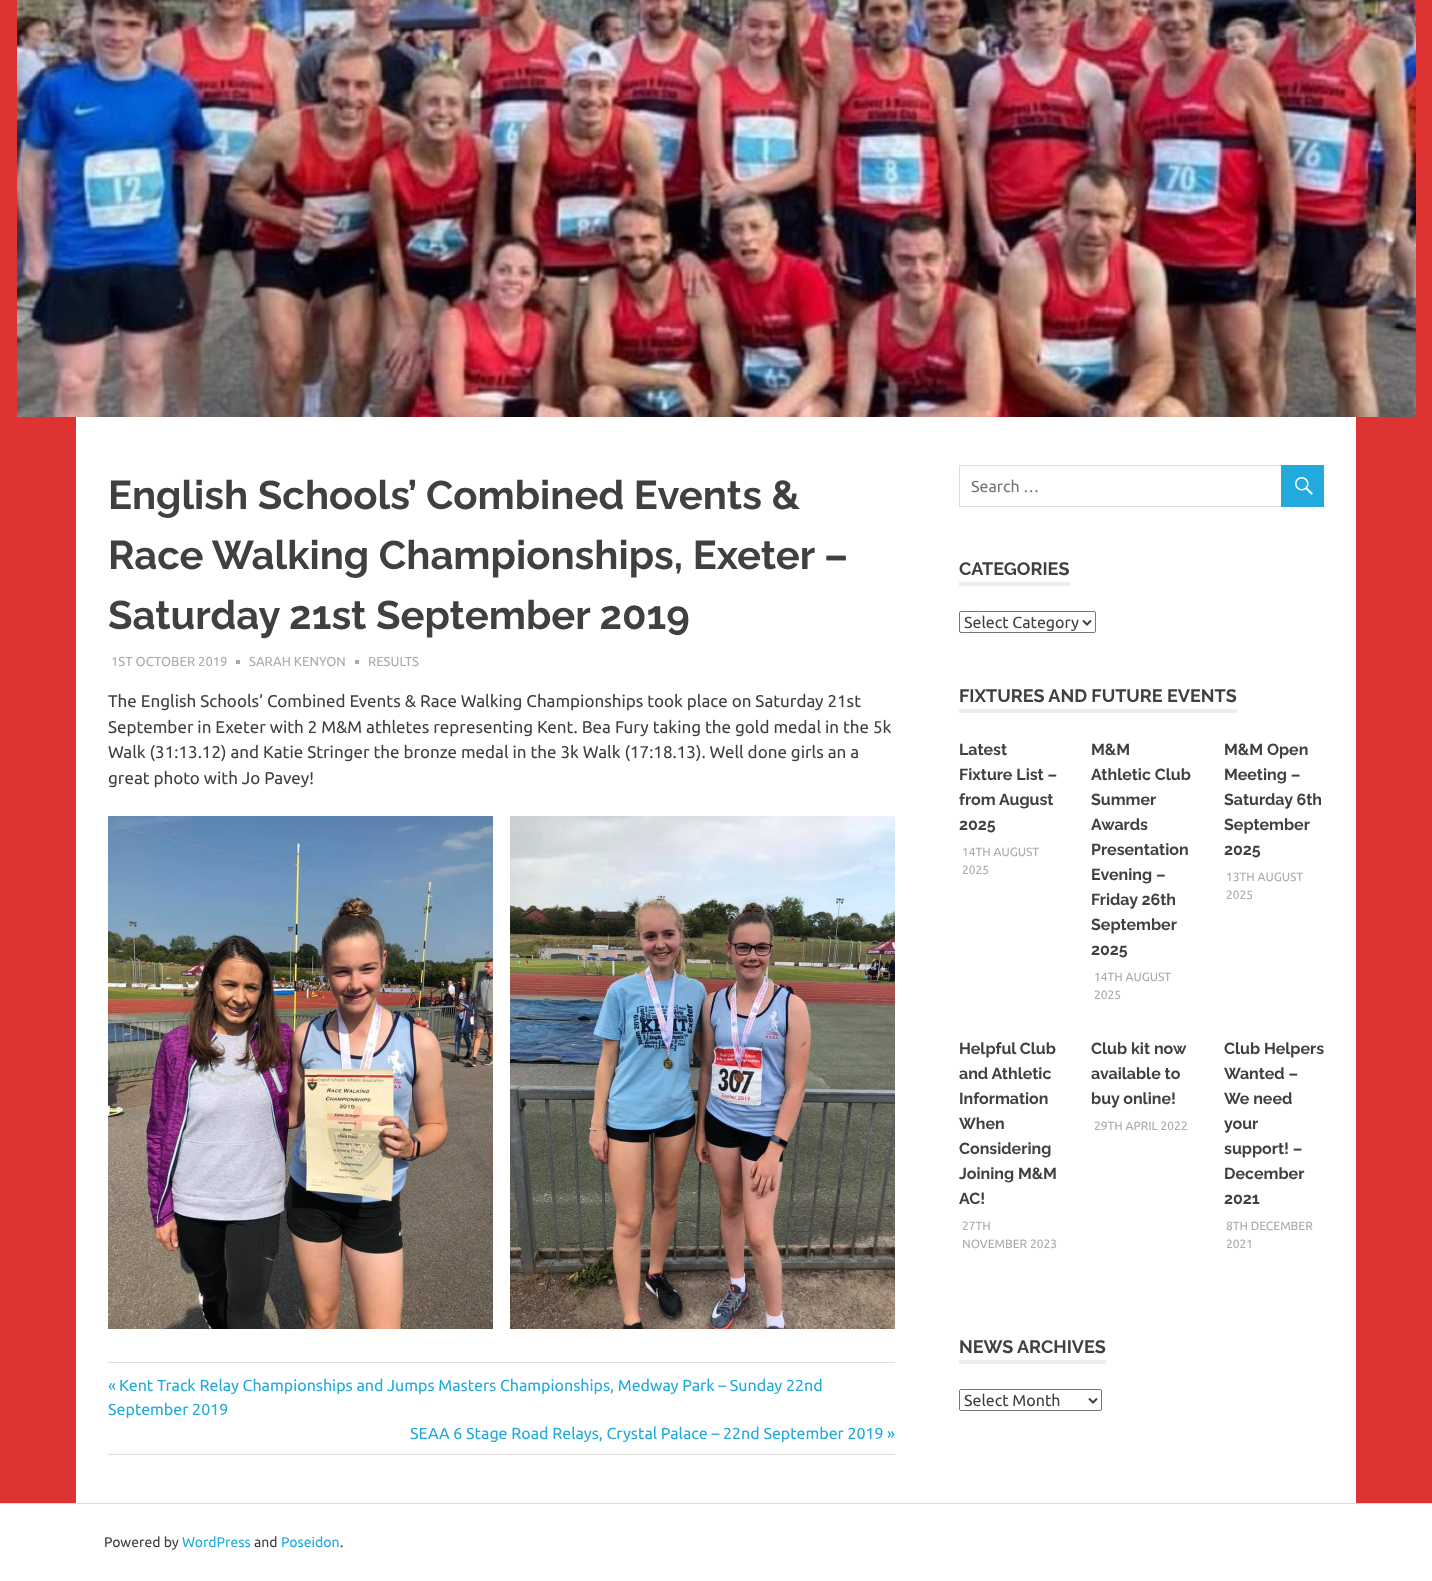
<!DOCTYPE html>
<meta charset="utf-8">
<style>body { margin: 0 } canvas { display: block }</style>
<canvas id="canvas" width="1432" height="1581"></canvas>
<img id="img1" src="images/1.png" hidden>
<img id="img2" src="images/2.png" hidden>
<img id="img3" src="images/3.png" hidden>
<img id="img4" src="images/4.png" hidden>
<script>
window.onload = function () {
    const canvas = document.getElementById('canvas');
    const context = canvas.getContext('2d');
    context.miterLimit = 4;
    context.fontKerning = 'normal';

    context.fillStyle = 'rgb(221, 51, 51)';
    context.fillRect(0, 0, 1432, 1581);
    context.drawImage(document.getElementById('img1'), 17, 0, 1399, 417);
    context.fillStyle = 'rgb(255, 255, 255)';
    context.fillRect(76, 417, 1280, 1086);
    context.fillStyle = 'rgb(170, 170, 170)';
    context.fillRect(236, 660, 4, 4);
    context.fillRect(355, 660, 4, 4);
    context.drawImage(document.getElementById('img2'), 108, 816, 385, 513);
    context.drawImage(document.getElementById('img3'), 510, 816, 385, 513);
    context.fillStyle = 'rgb(221, 221, 221)';
    context.fillRect(108, 1362, 787, 1);
    context.fillRect(108, 1454, 787, 1);
    context.strokeStyle = 'rgb(221, 221, 221)';
    context.strokeRect(959.5, 465.5, 364, 41);
    context.fillStyle = 'rgb(34, 170, 221)';
    context.fillRect(1281, 465, 43, 42);
    context.drawImage(document.getElementById('img4'), 1295, 477, 18, 18);
    context.fillStyle = 'rgb(238, 238, 238)';
    context.fillRect(959, 582, 111, 4);
    context.beginPath();
    context.roundRect(959.5, 611.5, 136, 21, 1.5);
    context.strokeStyle = 'rgb(118, 118, 118)';
    context.stroke();
    context.beginPath();
    context.moveTo(1083, 620.5);
    context.lineTo(1087, 624.5);
    context.lineTo(1091, 620.5);
    context.strokeStyle = 'rgb(64, 64, 64)';
    context.lineWidth = 2;
    context.stroke();
    context.fillRect(959, 709, 278, 4);
    context.fillRect(959, 1360, 147, 4);
    context.beginPath();
    context.roundRect(959.5, 1389.5, 142, 21, 1.5);
    context.strokeStyle = 'rgb(118, 118, 118)';
    context.lineWidth = 1;
    context.stroke();
    context.beginPath();
    context.moveTo(1089, 1398.5);
    context.lineTo(1093, 1402.5);
    context.lineTo(1097, 1398.5);
    context.strokeStyle = 'rgb(64, 64, 64)';
    context.lineWidth = 2;
    context.stroke();
    context.fillStyle = 'rgb(255, 255, 255)';
    context.fillRect(0, 1504, 1432, 77);
    context.fillStyle = 'rgb(221, 221, 221)';
    context.fillRect(0, 1503, 1432, 1);
    context.font = 'bold 40px Raleway';
    context.fillStyle = 'rgb(64, 64, 64)';
    context.fillText('English Schools’ Combined Events &', 108, 509);
    context.fillText('Race Walking Championships, Exeter –', 108, 569);
    context.fillText('Saturday 21st September 2019', 108, 629);
    context.font = '13px Ubuntu';
    context.fillStyle = 'rgb(170, 170, 170)';
    context.fillText('1ST OCTOBER 2019', 111, 666);
    context.fillText('SARAH KENYON', 249, 666);
    context.fillText('RESULTS', 368, 666);
    context.font = '17px Ubuntu';
    context.fillStyle = 'rgb(64, 64, 64)';
    context.fillText('The English Schools’ Combined Events & Race Walking Championships took place on Saturday 21st', 108, 707);
    context.fillText('September in Exeter with 2 M&M athletes representing Kent. Bea Fury taking the gold medal in the 5k', 108, 733);
    context.fillText('Walk (31:13.12) and Katie Stringer the bronze medal in the 3k Walk (17:18.13). Well done girls an a', 108, 758);
    context.fillText('great photo with Jo Pavey!', 108, 784);
    context.font = '16px Ubuntu';
    context.fillStyle = 'rgb(34, 170, 221)';
    context.fillText('«', 108, 1391);
    context.fillText('Kent Track Relay Championships and Jumps Masters Championships, Medway Park – Sunday 22nd', 119, 1391);
    context.fillText('September 2019', 108, 1415);
    context.fillText('SEAA 6 Stage Road Relays, Crystal Palace – 22nd September 2019', 410, 1439);
    context.fillText('»', 887, 1439);
    context.fillStyle = 'rgb(117, 117, 117)';
    context.fillText('Search …', 971, 492);
    context.font = 'bold 18px Raleway';
    context.fillStyle = 'rgb(64, 64, 64)';
    context.fillText('CATEGORIES', 959, 575);
    context.font = '16px Ubuntu';
    context.fillText('Select Category', 964, 628);
    context.font = 'bold 18px Raleway';
    context.fillText('FIXTURES AND FUTURE EVENTS', 959, 702);
    context.font = 'bold 16px Raleway';
    context.fillText('Latest', 959, 755);
    context.fillText('Fixture List –', 959, 780);
    context.fillText('from August', 959, 805);
    context.fillText('2025', 959, 830);
    context.font = '12px Ubuntu';
    context.fillStyle = 'rgb(170, 170, 170)';
    context.fillText('14TH AUGUST', 962, 856);
    context.fillText('2025', 962, 874);
    context.font = 'bold 16px Raleway';
    context.fillStyle = 'rgb(64, 64, 64)';
    context.fillText('M&M', 1091, 755);
    context.fillText('Athletic Club', 1091, 780);
    context.fillText('Summer', 1091, 805);
    context.fillText('Awards', 1091, 830);
    context.fillText('Presentation', 1091, 855);
    context.fillText('Evening –', 1091, 880);
    context.fillText('Friday 26th', 1091, 905);
    context.fillText('September', 1091, 930);
    context.fillText('2025', 1091, 955);
    context.font = '12px Ubuntu';
    context.fillStyle = 'rgb(170, 170, 170)';
    context.fillText('14TH AUGUST', 1094, 981);
    context.fillText('2025', 1094, 999);
    context.font = 'bold 16px Raleway';
    context.fillStyle = 'rgb(64, 64, 64)';
    context.fillText('M&M Open', 1224, 755);
    context.fillText('Meeting –', 1224, 780);
    context.fillText('Saturday 6th', 1224, 805);
    context.fillText('September', 1224, 830);
    context.fillText('2025', 1224, 855);
    context.font = '12px Ubuntu';
    context.fillStyle = 'rgb(170, 170, 170)';
    context.fillText('13TH AUGUST', 1226, 881);
    context.fillText('2025', 1226, 899);
    context.font = 'bold 16px Raleway';
    context.fillStyle = 'rgb(64, 64, 64)';
    context.fillText('Helpful Club', 959, 1054);
    context.fillText('and Athletic', 959, 1079);
    context.fillText('Information', 959, 1104);
    context.fillText('When', 959, 1129);
    context.fillText('Considering', 959, 1154);
    context.fillText('Joining M&M', 959, 1179);
    context.fillText('AC!', 959, 1204);
    context.font = '12px Ubuntu';
    context.fillStyle = 'rgb(170, 170, 170)';
    context.fillText('27TH', 962, 1230);
    context.fillText('NOVEMBER 2023', 962, 1248);
    context.font = 'bold 16px Raleway';
    context.fillStyle = 'rgb(64, 64, 64)';
    context.fillText('Club kit now', 1091, 1054);
    context.fillText('available to', 1091, 1079);
    context.fillText('buy online!', 1091, 1104);
    context.font = '12px Ubuntu';
    context.fillStyle = 'rgb(170, 170, 170)';
    context.fillText('29TH APRIL 2022', 1094, 1130);
    context.font = 'bold 16px Raleway';
    context.fillStyle = 'rgb(64, 64, 64)';
    context.fillText('Club Helpers', 1224, 1054);
    context.fillText('Wanted –', 1224, 1079);
    context.fillText('We need', 1224, 1104);
    context.fillText('your', 1224, 1129);
    context.fillText('support! –', 1224, 1154);
    context.fillText('December', 1224, 1179);
    context.fillText('2021', 1224, 1204);
    context.font = '12px Ubuntu';
    context.fillStyle = 'rgb(170, 170, 170)';
    context.fillText('8TH DECEMBER', 1226, 1230);
    context.fillText('2021', 1226, 1248);
    context.font = 'bold 18px Raleway';
    context.fillStyle = 'rgb(64, 64, 64)';
    context.fillText('NEWS ARCHIVES', 959, 1353);
    context.font = '16px Ubuntu';
    context.fillText('Select Month', 964, 1406);
    context.font = '14px Ubuntu';
    context.fillText('Powered by', 104, 1547);
    context.fillStyle = 'rgb(34, 170, 221)';
    context.fillText('WordPress', 182, 1547);
    context.fillStyle = 'rgb(64, 64, 64)';
    context.fillText('and', 254, 1547);
    context.fillStyle = 'rgb(34, 170, 221)';
    context.fillText('Poseidon', 281, 1547);
    context.fillStyle = 'rgb(64, 64, 64)';
    context.fillText('.', 340, 1547);
};
</script>
